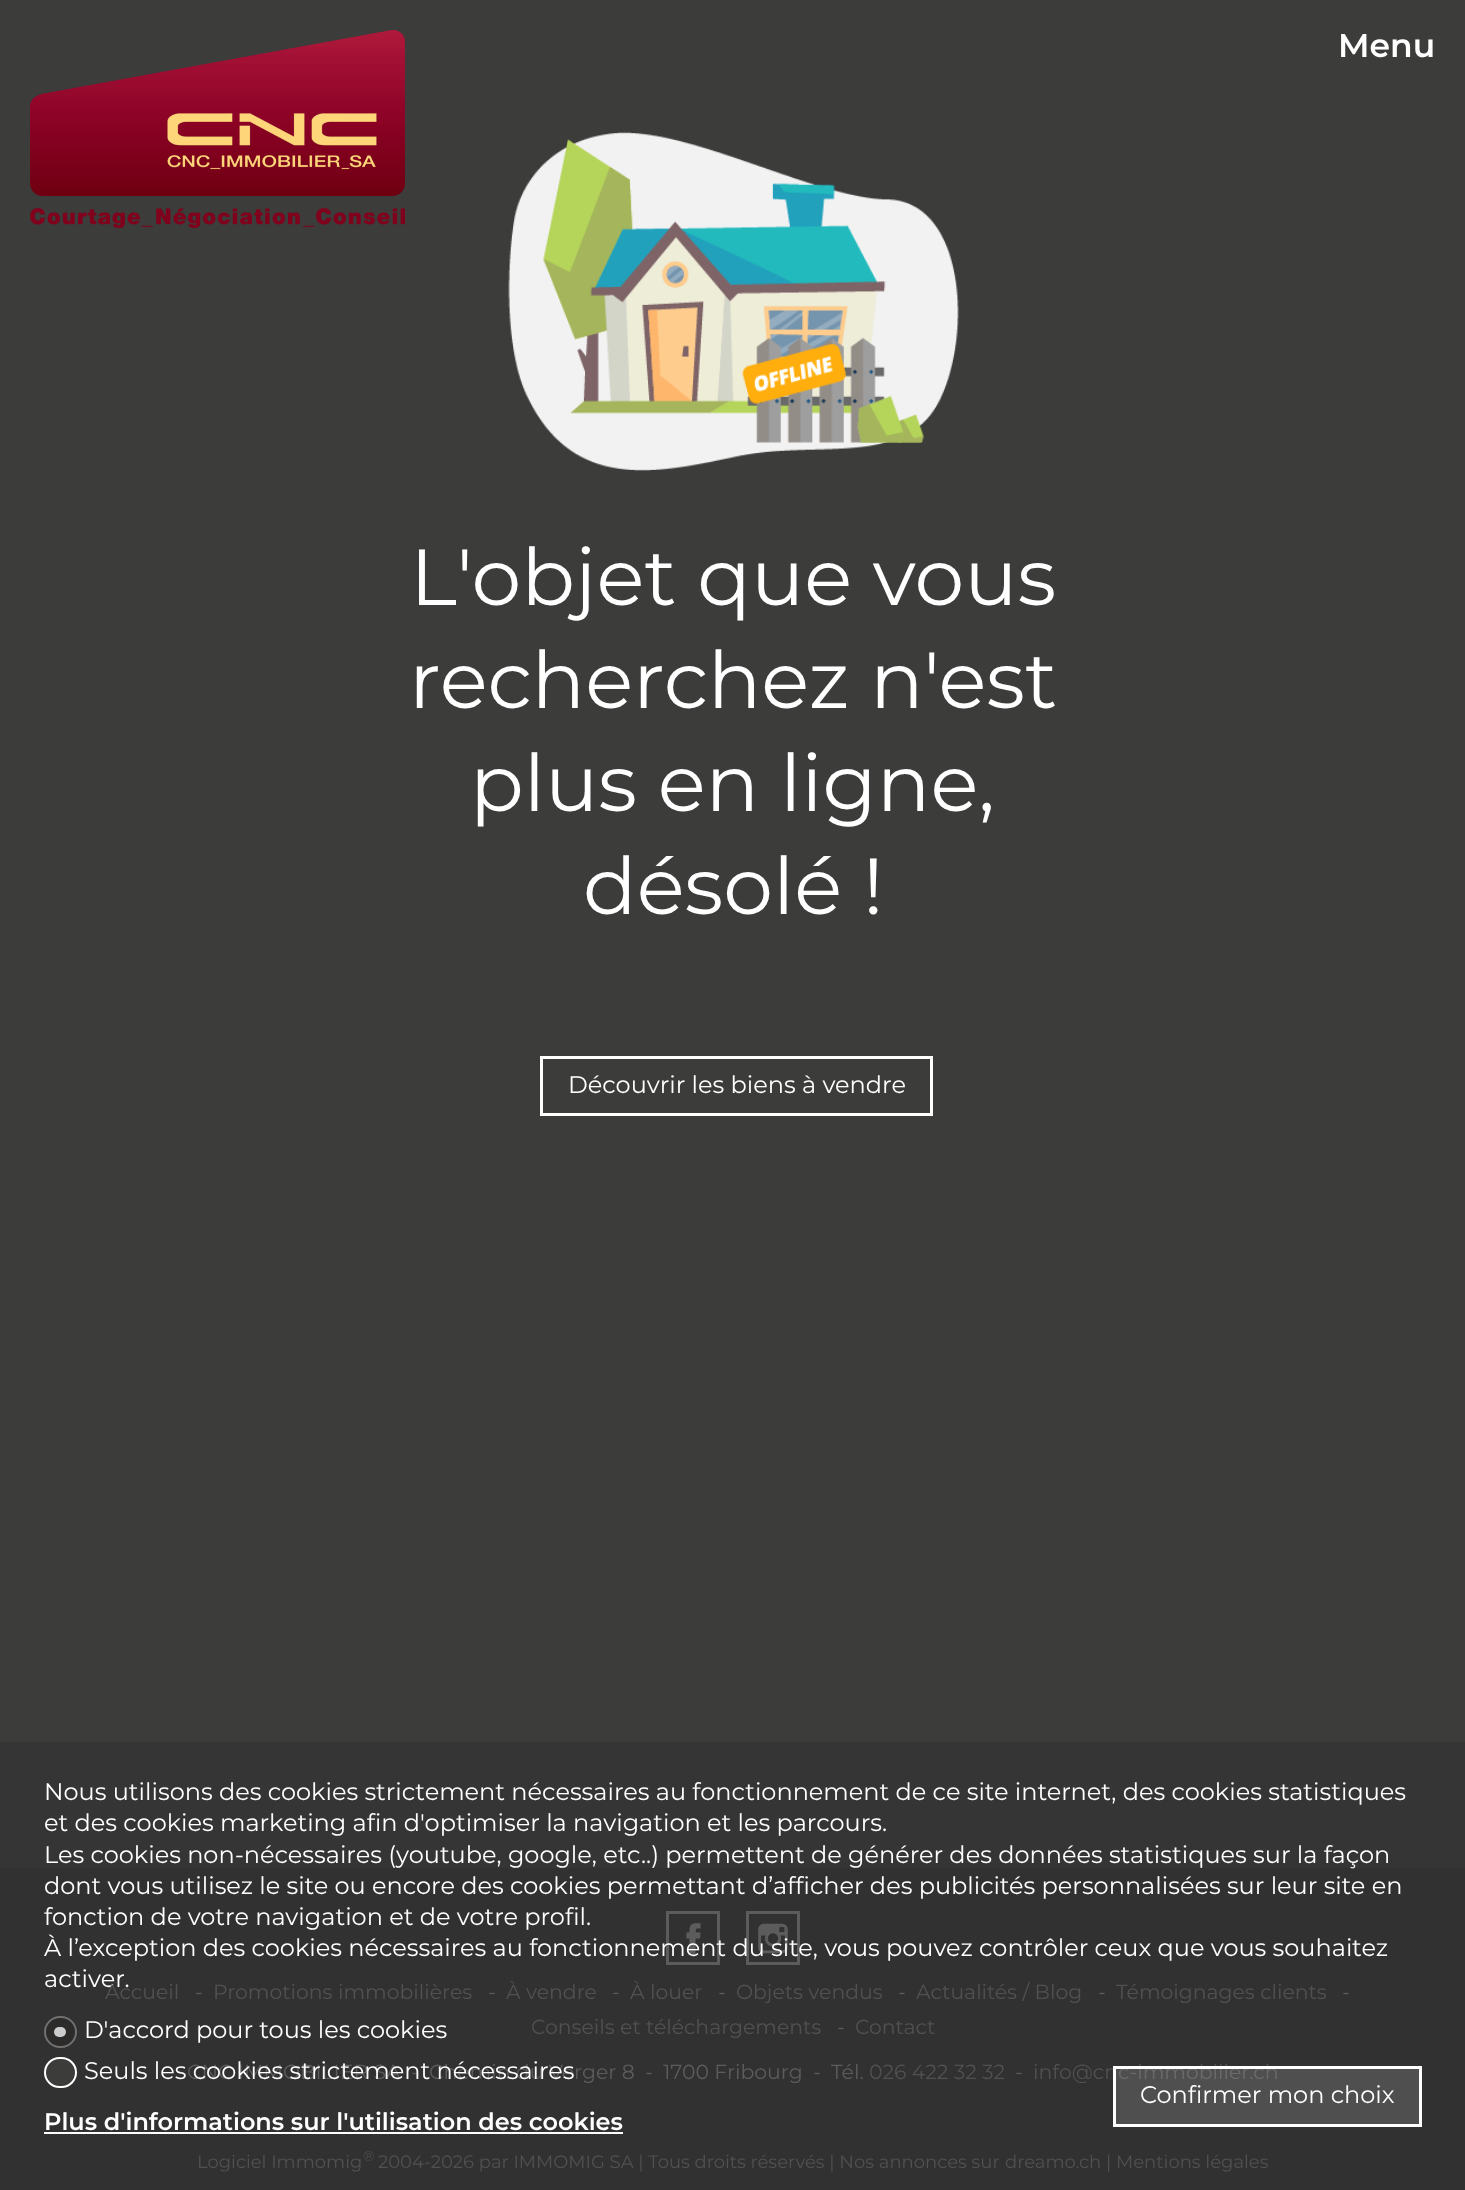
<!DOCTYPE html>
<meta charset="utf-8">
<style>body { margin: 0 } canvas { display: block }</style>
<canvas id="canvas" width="1465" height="2190"></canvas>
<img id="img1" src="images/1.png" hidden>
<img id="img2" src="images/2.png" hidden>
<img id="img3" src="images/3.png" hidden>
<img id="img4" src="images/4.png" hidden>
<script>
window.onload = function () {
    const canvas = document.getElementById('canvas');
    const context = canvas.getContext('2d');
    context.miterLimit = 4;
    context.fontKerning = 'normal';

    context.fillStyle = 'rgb(60, 60, 59)';
    context.fillRect(0, 0, 1465, 2190);
    context.fillStyle = 'rgb(53, 53, 53)';
    context.fillRect(0, 1742, 1465, 126);
    context.drawImage(document.getElementById('img1'), 30, 30, 375, 198);
    context.drawImage(document.getElementById('img2'), 508, 132, 451, 339);
    context.strokeStyle = 'rgb(255, 255, 255)';
    context.lineWidth = 3;
    context.strokeRect(541.5, 1057.5, 390, 57);
    context.fillStyle = 'rgb(50, 49, 49)';
    context.fillRect(0, 1868, 1465, 322);
    context.fillStyle = 'rgb(44, 43, 42)';
    context.beginPath();
    context.roundRect(45, 2017, 31, 30, 15);
    context.fill();
    context.strokeStyle = 'rgb(112, 112, 112)';
    context.lineWidth = 2;
    context.stroke();
    context.fillStyle = 'rgb(204, 204, 204)';
    context.beginPath();
    context.roundRect(54, 2027, 12, 10, 5);
    context.fill();
    context.fillStyle = 'rgb(60, 60, 59)';
    context.beginPath();
    context.roundRect(45, 2058, 31, 29, 14.5);
    context.fill();
    context.strokeStyle = 'rgb(255, 255, 255)';
    context.stroke();
    context.fillStyle = 'rgb(255, 255, 255)';
    context.fillRect(44, 2132, 579, 2);
    context.strokeStyle = 'rgb(92, 92, 92)';
    context.lineWidth = 3;
    context.strokeRect(667.5, 1912.5, 51, 51);
    context.drawImage(document.getElementById('img3'), 686, 1923, 15, 31);
    context.strokeRect(747.5, 1912.5, 51, 51);
    context.drawImage(document.getElementById('img4'), 758, 1923, 30, 31);
    context.font = '600 33px Montserrat';
    context.fillText('Menu', 1338, 57);
    context.font = '79.25px Montserrat';
    context.fillText('L\'objet que vous', 410, 605);
    context.fillText('recherchez n\'est', 409, 708);
    context.fillText('plus en ligne,', 470, 811);
    context.fillText('désolé !', 583, 914);
    context.font = '24px Montserrat';
    context.fillText('Découvrir les biens à vendre', 568, 1093);
    context.fillText('Nous utilisons des cookies strictement nécessaires au fonctionnement de ce site internet, des cookies statistiques', 44, 1800);
    context.fillText('et des cookies marketing afin d\'optimiser la navigation et les parcours.', 44, 1831);
    context.fillText('Les cookies non-nécessaires (youtube, google, etc..) permettent de générer des données statistiques sur la façon', 44, 1863);
    context.fillText('dont vous utilisez le site ou encore des cookies permettant d’afficher des publicités personnalisées sur leur site en', 44, 1894);
    context.fillText('fonction de votre navigation et de votre profil.', 44, 1925);
    context.fillText('À l’exception des cookies nécessaires au fonctionnement du site, vous pouvez contrôler ceux que vous souhaitez', 44, 1956);
    context.fillText('activer.', 44, 1987);
    context.fillText('D\'accord pour tous les cookies', 84, 2038);
    context.font = '600 24px Montserrat';
    context.fillText('Plus d\'informations sur l\'utilisation des cookies', 44, 2130);
    context.font = '20.4px Montserrat';
    context.fillStyle = 'rgb(81, 81, 81)';
    context.fillText('Accueil', 105, 1999);
    context.fillStyle = 'rgb(92, 92, 92)';
    context.fillText('-', 195, 1999);
    context.fillStyle = 'rgb(81, 81, 81)';
    context.fillText('Promotions immobilières', 213, 1999);
    context.fillStyle = 'rgb(92, 92, 92)';
    context.fillText('-', 488, 1999);
    context.fillStyle = 'rgb(81, 81, 81)';
    context.fillText('À vendre', 506, 1999);
    context.fillStyle = 'rgb(92, 92, 92)';
    context.fillText('-', 612, 1999);
    context.fillStyle = 'rgb(81, 81, 81)';
    context.fillText('À louer', 630, 1999);
    context.fillStyle = 'rgb(92, 92, 92)';
    context.fillText('-', 718, 1999);
    context.fillStyle = 'rgb(81, 81, 81)';
    context.fillText('Objets vendus', 736, 1999);
    context.fillStyle = 'rgb(92, 92, 92)';
    context.fillText('-', 898, 1999);
    context.fillStyle = 'rgb(81, 81, 81)';
    context.fillText('Actualités / Blog', 916, 1999);
    context.fillStyle = 'rgb(92, 92, 92)';
    context.fillText('-', 1098, 1999);
    context.fillStyle = 'rgb(81, 81, 81)';
    context.fillText('Témoignages clients', 1116, 1999);
    context.fillStyle = 'rgb(92, 92, 92)';
    context.fillText('-', 1342, 1999);
    context.fillStyle = 'rgb(81, 81, 81)';
    context.fillText('Conseils et téléchargements', 531, 2034);
    context.fillStyle = 'rgb(92, 92, 92)';
    context.fillText('-', 837, 2034);
    context.fillStyle = 'rgb(81, 81, 81)';
    context.fillText('Contact', 855, 2034);
    context.fillStyle = 'rgb(92, 92, 92)';
    context.fillText('CNC IMMOBILIER SA', 187, 2079);
    context.fillText('-', 411, 2079);
    context.fillText('Chemin du Verger 8', 429, 2079);
    context.font = '24px Montserrat';
    context.fillStyle = 'rgb(255, 255, 255)';
    context.fillText('Seuls les cookies strictement nécessaires', 84, 2079);
    context.font = '20.4px Montserrat';
    context.fillStyle = 'rgb(92, 92, 92)';
    context.fillText('-', 645, 2079);
    context.fillText('1700 Fribourg', 663, 2079);
    context.fillText('-', 813, 2079);
    context.fillText('Tél.', 831, 2079);
    context.fillStyle = 'rgb(81, 81, 81)';
    context.fillText('026 422 32 32', 869, 2079);
    context.fillStyle = 'rgb(92, 92, 92)';
    context.fillText('-', 1015, 2079);
    context.fillStyle = 'rgb(81, 81, 81)';
    context.fillText('info@cnc-immobilier.ch', 1033, 2079);
    context.fillStyle = 'rgba(255, 255, 255, 0.15)';
    context.beginPath();
    context.rect(1114.5, 2067.5, 306, 58);
    context.fill();
    context.strokeStyle = 'rgb(255, 255, 255)';
    context.stroke();
    context.font = '24px Montserrat';
    context.fillStyle = 'rgb(255, 255, 255)';
    context.fillText('Confirmer mon choix', 1140, 2103);
    context.font = '18px Montserrat';
    context.fillStyle = 'rgb(81, 81, 81)';
    context.fillText('Logiciel Immomig', 197, 2168);
    context.font = '14px Montserrat';
    context.fillText('®', 363, 2161);
    context.font = '18px Montserrat';
    context.fillText('2004-2026 par IMMOMIG SA | Tous droits réservés | Nos annonces sur', 378, 2168);
    context.fillText('dreamo.ch', 1005, 2168);
    context.fillText('|', 1106, 2168);
    context.fillText('Mentions légales', 1116, 2168);
};
</script>
